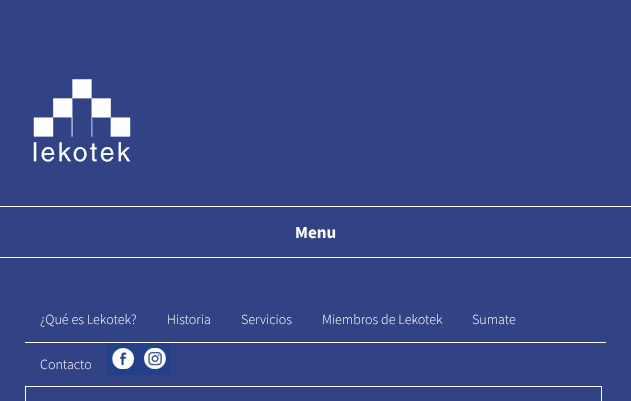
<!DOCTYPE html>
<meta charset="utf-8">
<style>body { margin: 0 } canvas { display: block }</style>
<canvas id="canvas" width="631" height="401"></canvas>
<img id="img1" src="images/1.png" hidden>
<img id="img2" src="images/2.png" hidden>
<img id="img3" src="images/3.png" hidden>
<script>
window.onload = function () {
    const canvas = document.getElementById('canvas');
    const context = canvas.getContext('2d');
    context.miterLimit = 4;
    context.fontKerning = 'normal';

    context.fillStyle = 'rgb(49, 67, 133)';
    context.fillRect(0, 0, 631, 401);
    context.drawImage(document.getElementById('img1'), 33, 79, 98, 83);
    context.fillStyle = 'rgb(255, 255, 255)';
    context.fillRect(0, 206, 631, 1);
    context.fillRect(0, 257, 631, 1);
    context.fillRect(25, 342, 581, 1);
    context.drawImage(document.getElementById('img2'), 107, 343, 32, 32);
    context.drawImage(document.getElementById('img3'), 139, 343, 32, 32);
    context.strokeStyle = 'rgb(255, 255, 255)';
    context.strokeRect(25.5, 386.5, 576, 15);
    context.font = 'bold 17px Source Sans Pro';
    context.fillText('Menu', 295, 238);
    context.font = '300 14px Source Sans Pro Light';
    context.fillText('¿Qué es Lekotek?', 40, 324);
    context.fillText('Historia', 167, 324);
    context.fillText('Servicios', 241, 324);
    context.fillText('Miembros de Lekotek', 322, 324);
    context.fillText('Sumate', 472, 324);
    context.fillText('Contacto', 40, 369);
};
</script>
